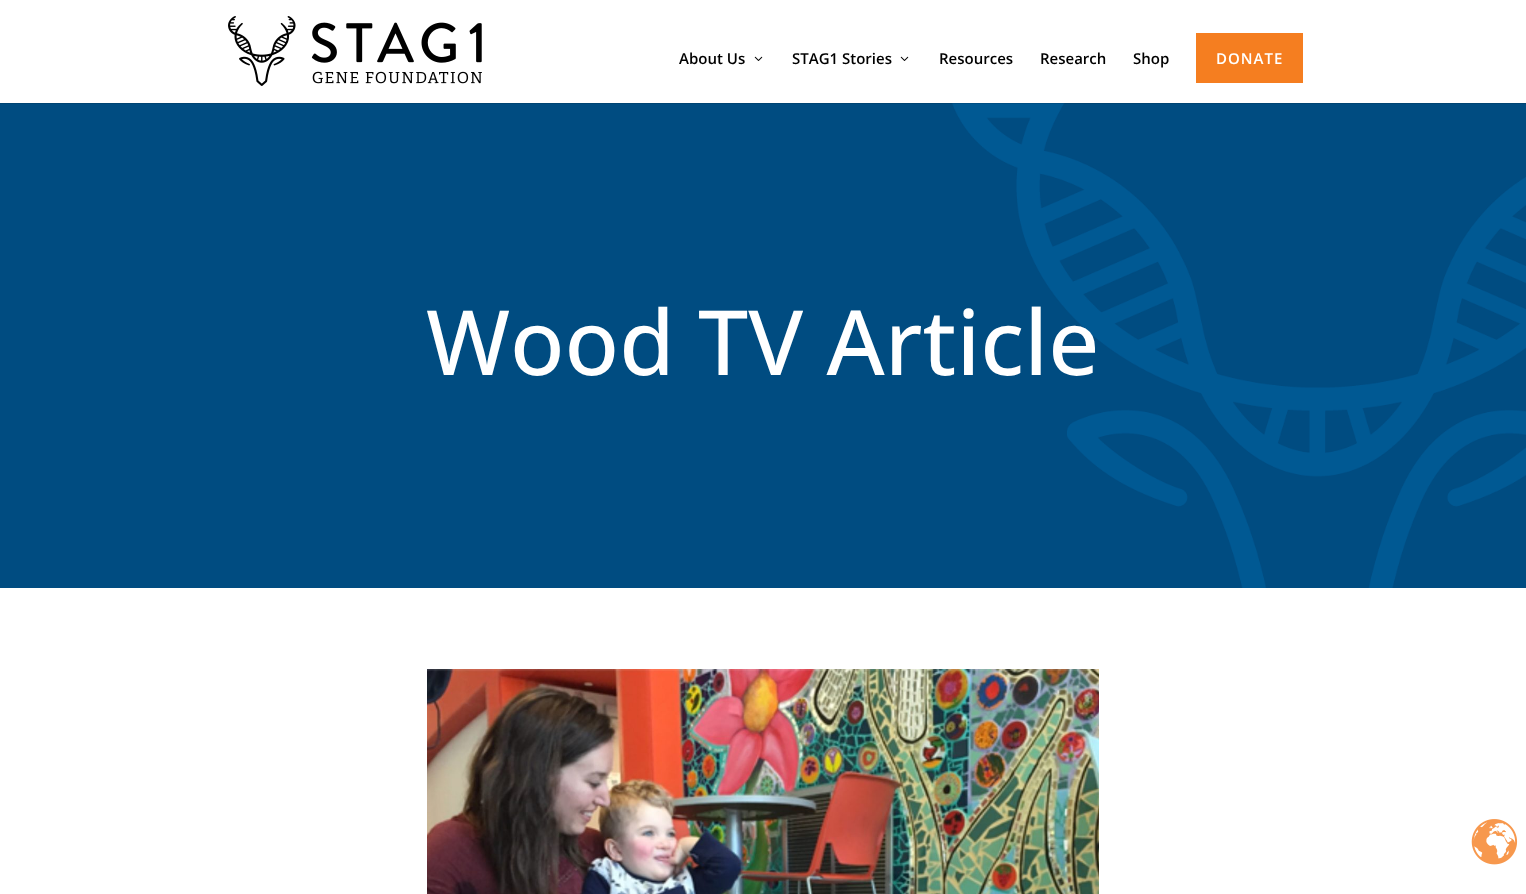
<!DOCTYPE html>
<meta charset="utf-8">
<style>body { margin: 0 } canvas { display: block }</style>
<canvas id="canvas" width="1526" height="894"></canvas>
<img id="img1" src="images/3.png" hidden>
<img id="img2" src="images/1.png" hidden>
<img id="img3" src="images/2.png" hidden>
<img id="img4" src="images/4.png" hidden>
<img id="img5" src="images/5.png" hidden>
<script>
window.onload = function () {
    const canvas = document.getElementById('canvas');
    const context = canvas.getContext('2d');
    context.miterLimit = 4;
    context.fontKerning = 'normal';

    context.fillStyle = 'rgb(255, 255, 255)';
    context.fillRect(0, 0, 1526, 894);
    context.fillStyle = 'rgb(0, 76, 129)';
    context.fillRect(0, 103, 1526, 485);
    context.drawImage(document.getElementById('img1'), 951, 103, 575, 485);
    context.fillStyle = 'rgba(0, 0, 0, 0.1)';
    context.fillRect(0, 103, 1526, 1);
    context.drawImage(document.getElementById('img2'), 228, 16, 254, 70);
    context.drawImage(document.getElementById('img3'), 754, 56, 9, 5);
    context.drawImage(document.getElementById('img3'), 900, 56, 9, 5);
    context.fillStyle = 'rgb(245, 126, 32)';
    context.fillRect(1196, 33, 107, 50);
    context.drawImage(document.getElementById('img4'), 427, 669, 672, 225);
    context.drawImage(document.getElementById('img5'), 1471, 819, 47, 46);
    context.font = '600 15px Open Sans';
    context.fillStyle = 'rgb(0, 0, 0)';
    context.fillText('About Us', 679, 64);
    context.fillText('STAG1 Stories', 792, 64);
    context.fillText('Resources', 939, 64);
    context.fillText('Research', 1040, 64);
    context.fillText('Shop', 1133, 64);
    context.letterSpacing = '1px';
    context.fillStyle = 'rgb(255, 255, 255)';
    context.fillText('DONATE', 1216, 64);
    context.letterSpacing = '0px';
    context.font = '500 90px Open Sans';
    context.fillText('Wood TV Article', 426, 375);
};
</script>
